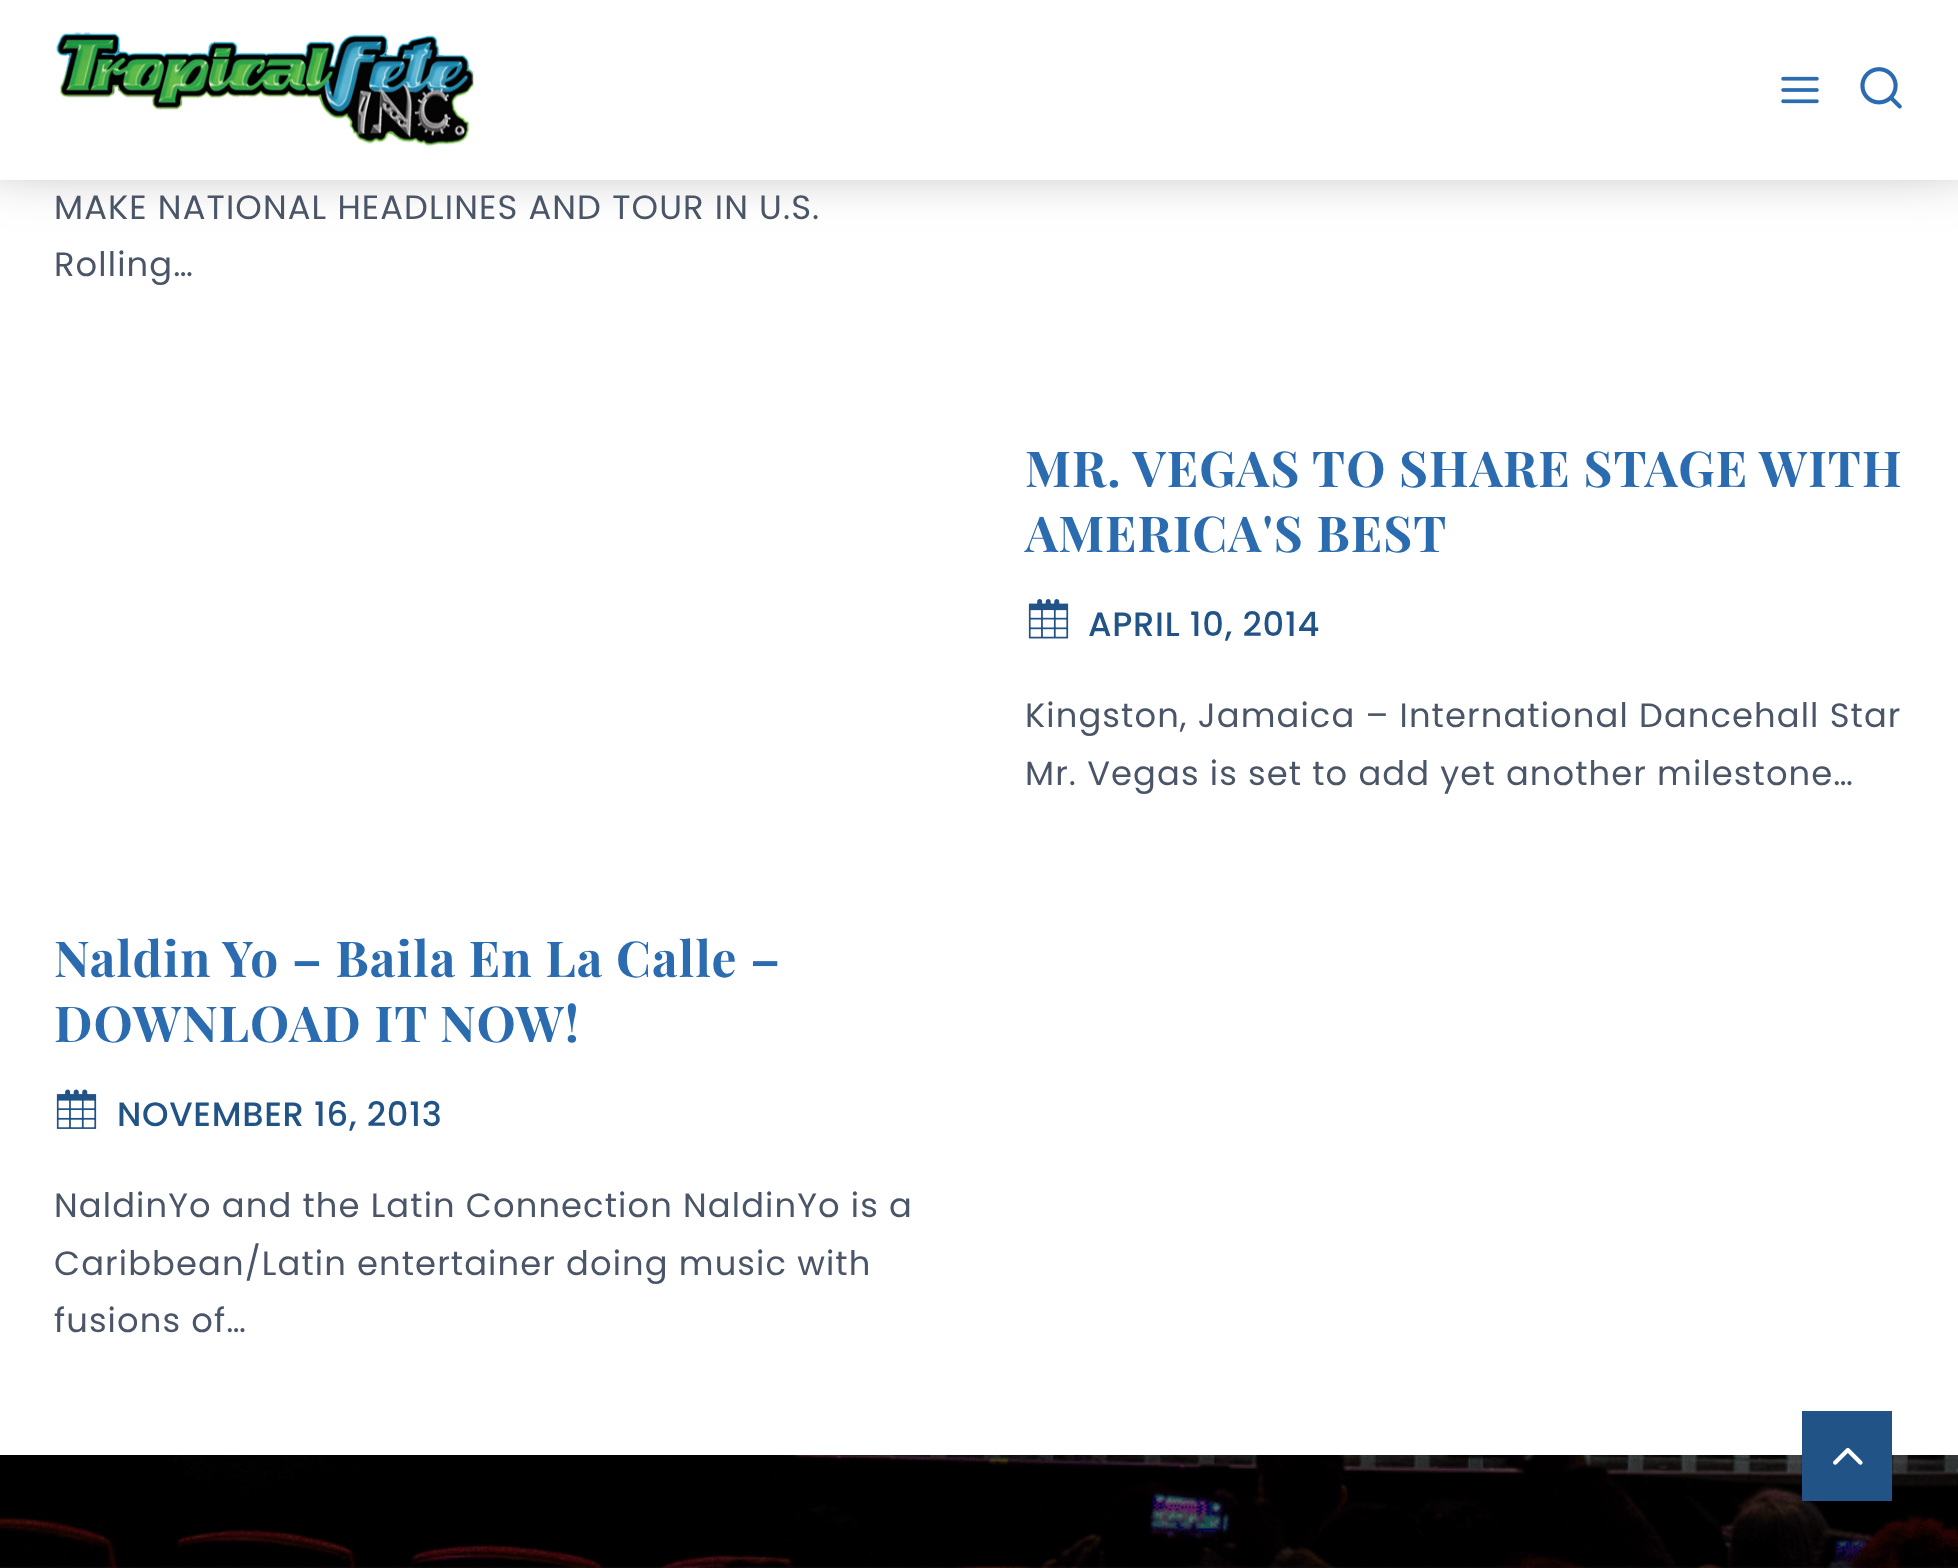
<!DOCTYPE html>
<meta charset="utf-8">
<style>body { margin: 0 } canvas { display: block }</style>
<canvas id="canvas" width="1958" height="1568"></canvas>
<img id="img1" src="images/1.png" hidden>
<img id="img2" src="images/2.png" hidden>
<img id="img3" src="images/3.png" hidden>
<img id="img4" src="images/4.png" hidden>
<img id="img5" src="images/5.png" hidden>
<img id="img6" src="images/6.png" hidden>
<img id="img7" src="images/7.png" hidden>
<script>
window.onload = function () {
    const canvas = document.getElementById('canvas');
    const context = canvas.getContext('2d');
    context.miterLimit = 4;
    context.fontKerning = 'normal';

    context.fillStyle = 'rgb(255, 255, 255)';
    context.fillRect(0, 0, 1958, 1568);
    context.fillStyle = 'rgb(102, 102, 102)';
    context.filter = 'blur(34px)';
    context.beginPath();
    context.rect(-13, -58, 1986, 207);
    context.fill();
    context.filter = 'none';
    context.fillStyle = 'rgb(255, 255, 255)';
    context.fillRect(0, 0, 1958, 180);
    context.drawImage(document.getElementById('img1'), 56, 32, 418, 115);
    context.drawImage(document.getElementById('img2'), 1781, 76, 38, 28);
    context.drawImage(document.getElementById('img3'), 1860, 67, 42, 42);
    context.drawImage(document.getElementById('img4'), 1028, 599, 41, 40);
    context.drawImage(document.getElementById('img5'), 56, 1089, 41, 40);
    context.drawImage(document.getElementById('img6'), 0, 1455, 1958, 113);
    context.fillStyle = 'rgb(33, 83, 135)';
    context.fillRect(1802, 1411, 90, 90);
    context.drawImage(document.getElementById('img7'), 1833, 1447, 30, 18);
    context.letterSpacing = '1.1px';
    context.font = '33.75px Poppins';
    context.fillStyle = 'rgb(74, 85, 104)';
    context.fillText('MAKE NATIONAL HEADLINES AND TOUR IN U.S.', 54, 219);
    context.fillText('Rolling…', 54, 276);
    context.font = 'bold 49.5px Playfair Display';
    context.fillStyle = 'rgb(43, 108, 176)';
    context.fillText('MR. VEGAS TO SHARE STAGE WITH', 1025, 487);
    context.fillText('AMERICA\'S BEST', 1025, 552);
    context.letterSpacing = '0.7px';
    context.font = '500 33.75px Poppins';
    context.fillStyle = 'rgb(33, 83, 135)';
    context.fillText('APRIL 10, 2014', 1088, 636);
    context.letterSpacing = '1.1px';
    context.font = '33.75px Poppins';
    context.fillStyle = 'rgb(74, 85, 104)';
    context.fillText('Kingston, Jamaica – International Dancehall Star', 1025, 727);
    context.fillText('Mr. Vegas is set to add yet another milestone…', 1025, 785);
    context.font = 'bold 49.5px Playfair Display';
    context.fillStyle = 'rgb(43, 108, 176)';
    context.fillText('Naldin Yo – Baila En La Calle –', 54, 977);
    context.fillText('DOWNLOAD IT NOW!', 54, 1042);
    context.letterSpacing = '0.7px';
    context.font = '500 33.75px Poppins';
    context.fillStyle = 'rgb(33, 83, 135)';
    context.fillText('NOVEMBER 16, 2013', 117, 1126);
    context.letterSpacing = '1.1px';
    context.font = '33.75px Poppins';
    context.fillStyle = 'rgb(74, 85, 104)';
    context.fillText('NaldinYo and the Latin Connection NaldinYo is a', 54, 1217);
    context.fillText('Caribbean/Latin entertainer doing music with', 54, 1275);
    context.fillText('fusions of…', 54, 1332);
};
</script>
